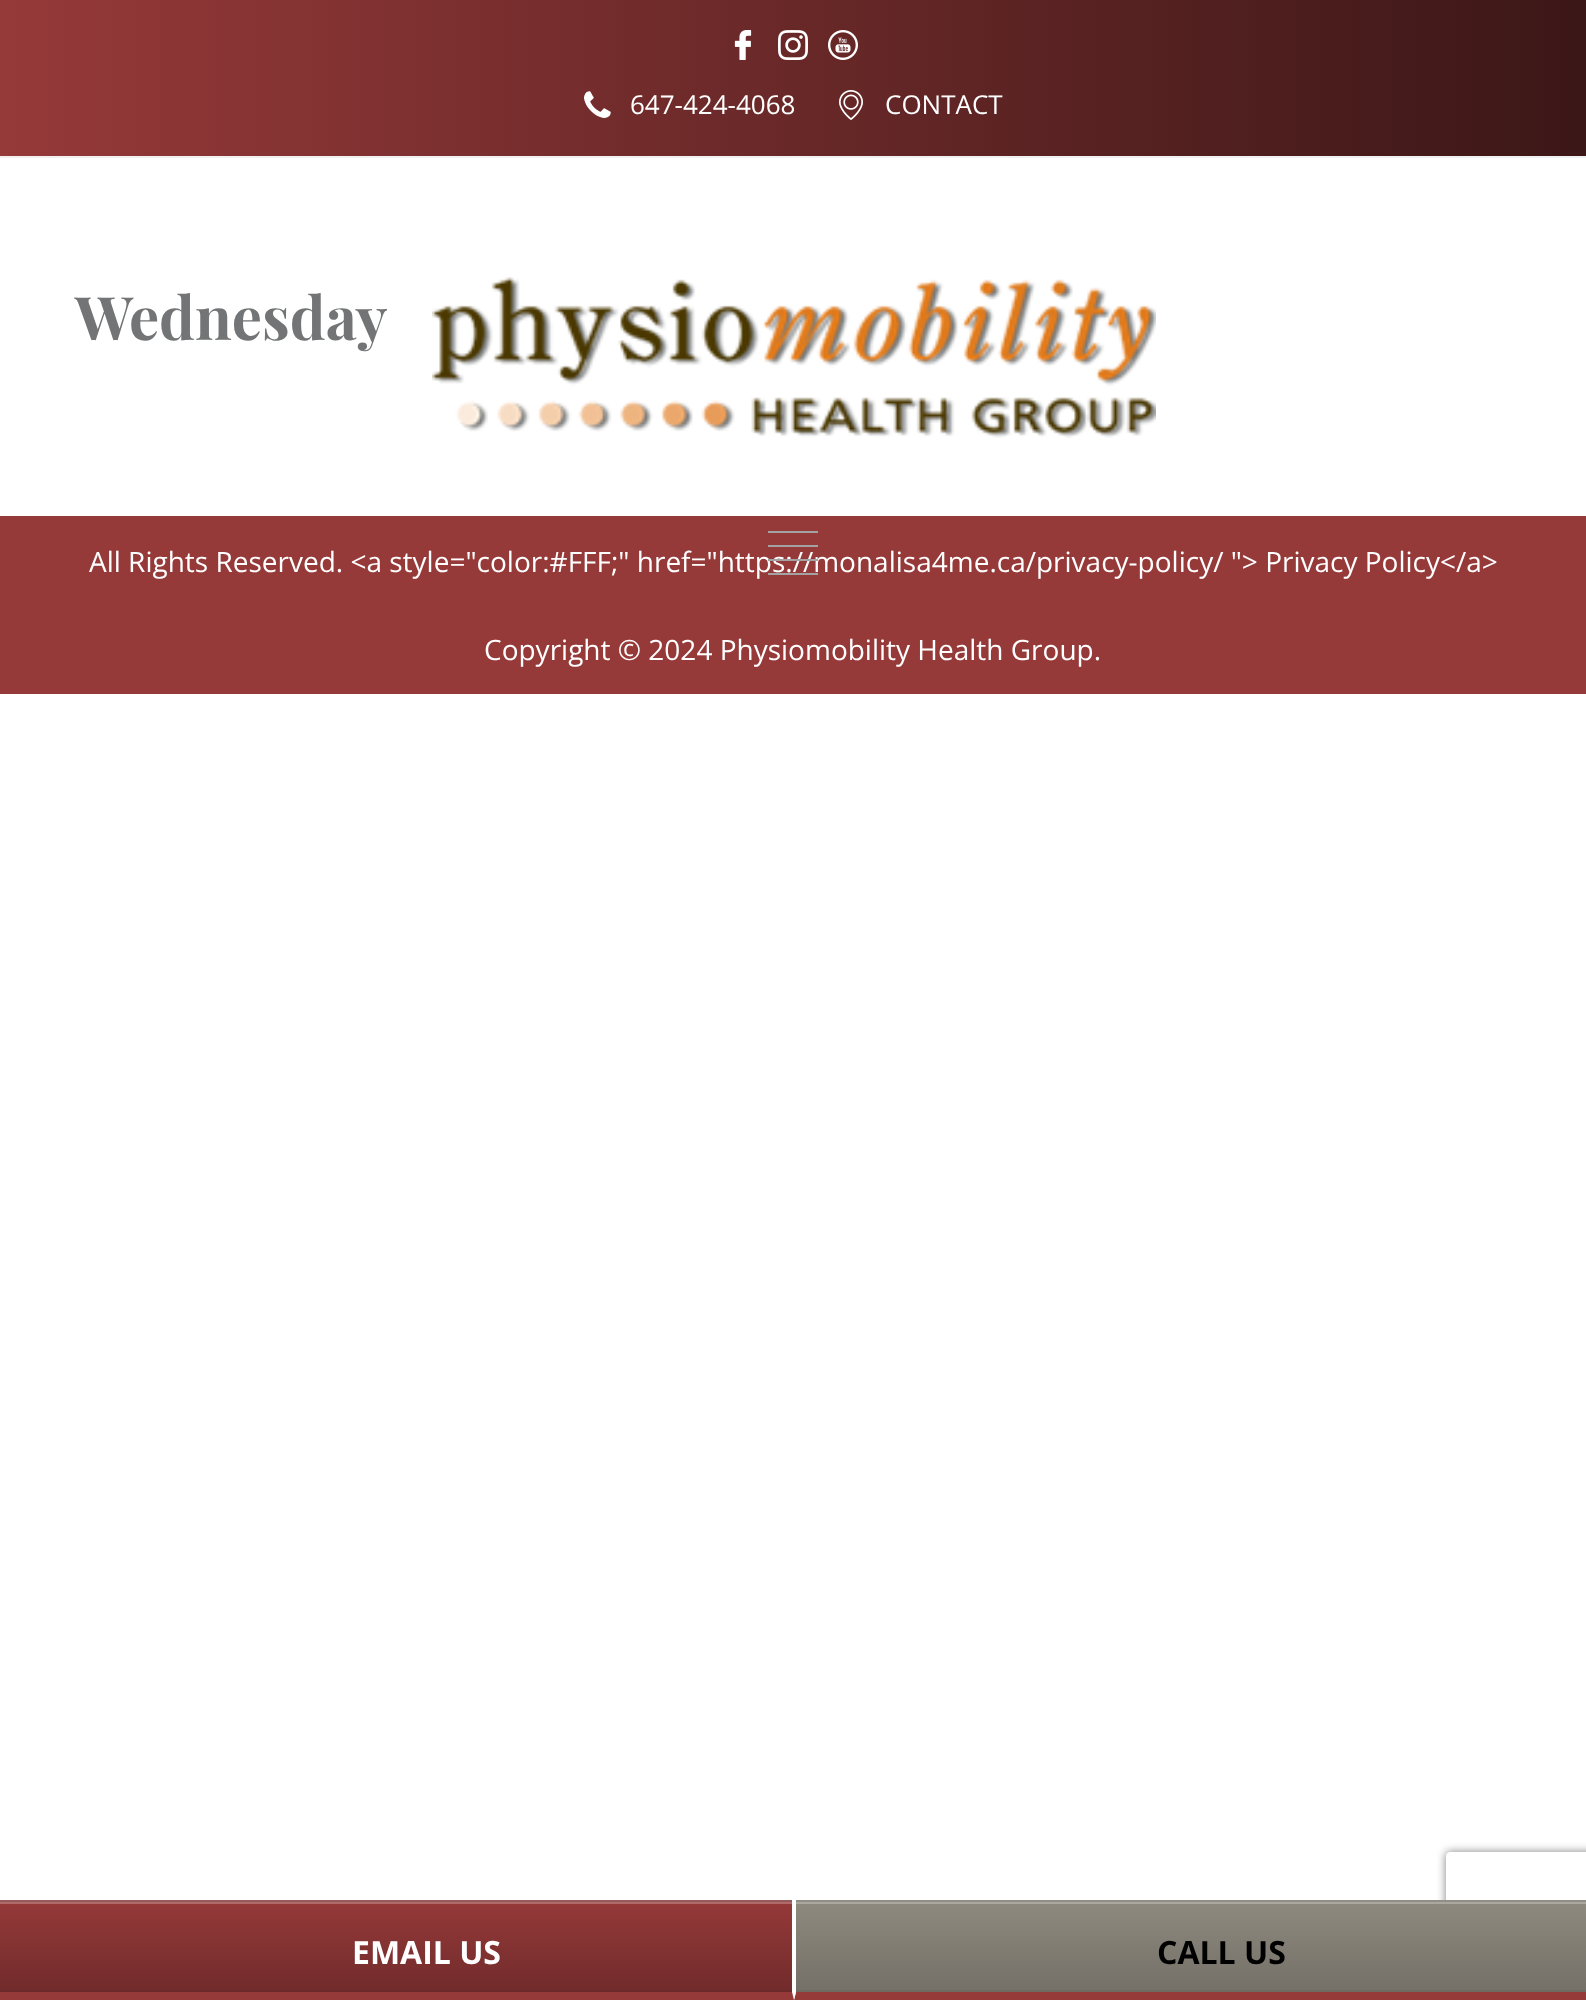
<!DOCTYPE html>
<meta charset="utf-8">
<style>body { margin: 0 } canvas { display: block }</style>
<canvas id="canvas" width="1586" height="2000"></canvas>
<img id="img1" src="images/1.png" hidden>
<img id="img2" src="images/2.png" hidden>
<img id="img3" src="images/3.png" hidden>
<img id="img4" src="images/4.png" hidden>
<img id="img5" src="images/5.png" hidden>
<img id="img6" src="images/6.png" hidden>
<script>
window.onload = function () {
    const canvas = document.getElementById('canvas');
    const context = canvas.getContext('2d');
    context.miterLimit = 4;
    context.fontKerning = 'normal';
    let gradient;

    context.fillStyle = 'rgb(255, 255, 255)';
    context.fillRect(0, 0, 1586, 2000);
    gradient = context.createLinearGradient(0, 78, 1586, 78);
    gradient.addColorStop(0, 'rgb(150, 57, 57)');
    gradient.addColorStop(1, 'rgb(60, 23, 23)');
    context.fillStyle = gradient;
    context.fillRect(0, 0, 1586, 156);
    context.drawImage(document.getElementById('img1'), 734, 30, 18, 30);
    context.drawImage(document.getElementById('img2'), 778, 30, 30, 30);
    context.drawImage(document.getElementById('img3'), 828, 30, 30, 30);
    context.drawImage(document.getElementById('img4'), 584, 91, 27, 27);
    context.drawImage(document.getElementById('img5'), 839, 90, 24, 30);
    context.fillStyle = 'rgb(241, 241, 241)';
    context.fillRect(0, 156, 1586, 2);
    context.drawImage(document.getElementById('img6'), 432, 277, 724, 161);
    context.fillStyle = 'rgb(150, 57, 57)';
    context.fillRect(0, 516, 1586, 178);
    context.fillStyle = 'rgb(163, 163, 163)';
    context.fillRect(768, 531, 50, 2);
    context.fillRect(768, 545, 50, 2);
    gradient = context.createLinearGradient(396, 1900, 396, 1992);
    gradient.addColorStop(0, 'rgb(150, 57, 57)');
    gradient.addColorStop(1, 'rgb(113, 43, 43)');
    context.fillStyle = gradient;
    context.fillRect(0, 1904, 792, 86);
    context.fillStyle = 'rgb(176, 106, 106)';
    context.fillRect(0, 1902, 792, 2);
    context.fillStyle = 'rgb(150, 90, 90)';
    context.fillRect(0, 1900, 792, 2);
    context.fillStyle = 'rgb(108, 41, 41)';
    context.fillRect(0, 1990, 792, 2);
    context.fillStyle = 'rgb(150, 57, 57)';
    context.beginPath();
    context.moveTo(794, 2000);
    context.lineTo(0, 2000);
    context.lineTo(0, 1992);
    context.lineTo(792, 1992);
    context.closePath();
    context.fill();
    context.save();
    context.beginPath();
    context.moveTo(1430, 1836);
    context.lineTo(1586, 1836);
    context.lineTo(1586, 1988);
    context.lineTo(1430, 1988);
    context.closePath();
    context.moveTo(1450, 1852);
    context.lineTo(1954, 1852);
    context.bezierCurveTo(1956, 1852, 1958, 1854, 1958, 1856);
    context.lineTo(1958, 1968);
    context.bezierCurveTo(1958, 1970, 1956, 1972, 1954, 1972);
    context.lineTo(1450, 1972);
    context.bezierCurveTo(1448, 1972, 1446, 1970, 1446, 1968);
    context.lineTo(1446, 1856);
    context.bezierCurveTo(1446, 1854, 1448, 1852, 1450, 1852);
    context.closePath();
    context.clip('evenodd');
    context.fillStyle = 'rgb(128, 128, 128)';
    context.filter = 'blur(5px)';
    context.beginPath();
    context.roundRect(1446, 1852, 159, 120, 4);
    context.fill();
    context.filter = 'none';
    context.restore();
    gradient = context.createLinearGradient(1191, 1900, 1191, 1992);
    gradient.addColorStop(0, 'rgb(142, 138, 128)');
    gradient.addColorStop(1, 'rgb(116, 112, 103)');
    context.fillStyle = gradient;
    context.fillRect(796, 1904, 790, 86);
    context.fillStyle = 'rgb(170, 167, 159)';
    context.fillRect(796, 1902, 790, 2);
    context.fillStyle = 'rgb(145, 142, 135)';
    context.fillRect(796, 1900, 790, 2);
    context.fillStyle = 'rgb(110, 106, 98)';
    context.fillRect(796, 1990, 790, 2);
    context.fillStyle = 'rgb(150, 57, 57)';
    context.beginPath();
    context.moveTo(1586, 2000);
    context.lineTo(794, 2000);
    context.lineTo(796, 1992);
    context.lineTo(1586, 1992);
    context.closePath();
    context.fill();
    context.fillStyle = 'rgb(255, 255, 255)';
    context.beginPath();
    context.moveTo(794, 2000);
    context.lineTo(794, 1900);
    context.lineTo(796, 1900);
    context.lineTo(796, 1992);
    context.closePath();
    context.fill();
    context.font = '26px Open Sans';
    context.fillText('647-424-4068', 630, 114);
    context.fillText('CONTACT', 885, 114);
    context.font = 'bold 60px Playfair Display';
    context.fillStyle = 'rgb(114, 116, 117)';
    context.fillText('Wednesday', 75, 340);
    context.font = '28px Open Sans';
    context.fillStyle = 'rgb(255, 255, 255)';
    context.fillText('All Rights Reserved. <a style="color:#FFF;" href="https://monalisa4me.ca/privacy-policy/ "> Privacy Policy<\/a>', 89, 572);
    context.fillStyle = 'rgb(163, 163, 163)';
    context.fillRect(768, 573, 50, 2);
    context.fillRect(768, 559, 50, 2);
    context.fillStyle = 'rgb(255, 255, 255)';
    context.fillText('Copyright © 2024 Physiomobility Health Group.', 484, 660);
    context.font = 'bold 32px Open Sans';
    context.fillText('EMAIL US', 352, 1964);
    context.fillStyle = 'rgb(0, 0, 0)';
    context.fillText('CALL US', 1157, 1964);
};
</script>
